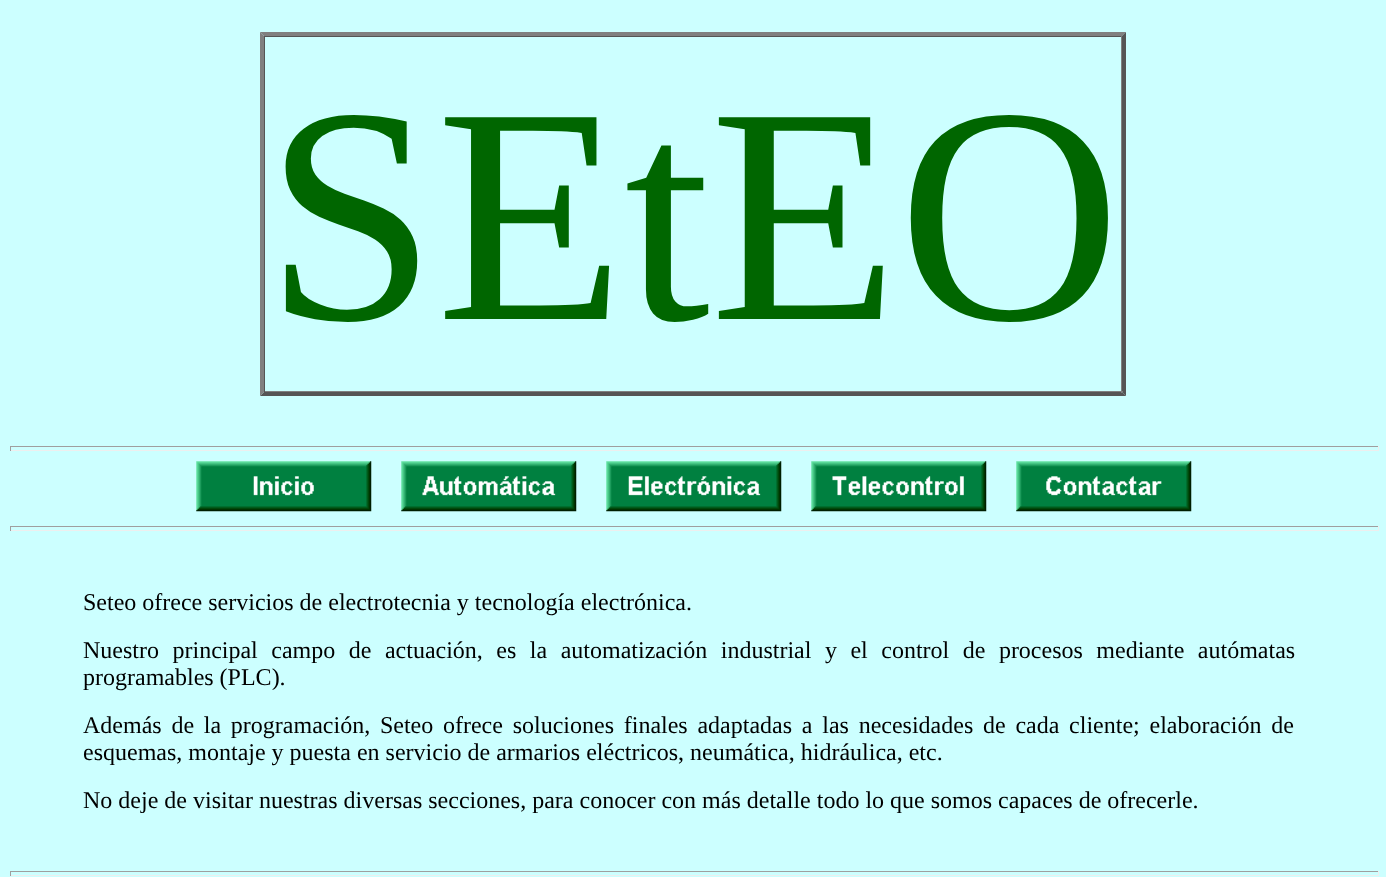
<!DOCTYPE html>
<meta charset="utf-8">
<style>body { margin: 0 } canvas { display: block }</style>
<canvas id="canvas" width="1386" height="877"></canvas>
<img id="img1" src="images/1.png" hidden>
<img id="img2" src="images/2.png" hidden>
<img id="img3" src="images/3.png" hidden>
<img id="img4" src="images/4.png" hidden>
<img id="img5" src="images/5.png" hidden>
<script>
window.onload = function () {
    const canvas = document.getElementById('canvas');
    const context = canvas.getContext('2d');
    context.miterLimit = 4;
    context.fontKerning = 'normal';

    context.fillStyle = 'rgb(204, 255, 255)';
    context.fillRect(0, 0, 1386, 877);
    context.fillStyle = 'rgb(128, 128, 128)';
    context.beginPath();
    context.moveTo(260, 32);
    context.lineTo(1126, 32);
    context.lineTo(1122, 36);
    context.lineTo(264, 36);
    context.closePath();
    context.fill();
    context.fillStyle = 'rgb(85, 85, 85)';
    context.beginPath();
    context.moveTo(1126, 32);
    context.lineTo(1126, 396);
    context.lineTo(1122, 392);
    context.lineTo(1122, 36);
    context.closePath();
    context.fill();
    context.beginPath();
    context.moveTo(1126, 396);
    context.lineTo(260, 396);
    context.lineTo(264, 392);
    context.lineTo(1122, 392);
    context.closePath();
    context.fill();
    context.fillStyle = 'rgb(128, 128, 128)';
    context.beginPath();
    context.moveTo(260, 396);
    context.lineTo(260, 32);
    context.lineTo(264, 36);
    context.lineTo(264, 392);
    context.closePath();
    context.fill();
    context.fillStyle = 'rgb(85, 85, 85)';
    context.fillRect(264, 36, 859, 1);
    context.fillStyle = 'rgb(128, 128, 128)';
    context.fillRect(1121, 36, 1, 357);
    context.fillRect(264, 391, 859, 1);
    context.fillStyle = 'rgb(85, 85, 85)';
    context.fillRect(264, 36, 1, 357);
    context.fillStyle = 'rgb(159, 159, 159)';
    context.fillRect(10, 446, 1369, 1);
    context.fillStyle = 'rgb(238, 238, 238)';
    context.fillRect(1378, 446, 1, 5);
    context.fillRect(10, 450, 1369, 1);
    context.fillStyle = 'rgb(159, 159, 159)';
    context.fillRect(10, 446, 1, 5);
    context.drawImage(document.getElementById('img1'), 196, 461, 176, 51);
    context.drawImage(document.getElementById('img2'), 401, 461, 176, 51);
    context.drawImage(document.getElementById('img3'), 606, 461, 176, 51);
    context.drawImage(document.getElementById('img4'), 811, 461, 176, 51);
    context.drawImage(document.getElementById('img5'), 1016, 461, 176, 51);
    context.fillRect(10, 526, 1369, 1);
    context.fillStyle = 'rgb(238, 238, 238)';
    context.fillRect(1378, 526, 1, 5);
    context.fillRect(10, 530, 1369, 1);
    context.fillStyle = 'rgb(159, 159, 159)';
    context.fillRect(10, 526, 1, 5);
    context.fillRect(10, 871, 1369, 1);
    context.fillStyle = 'rgb(238, 238, 238)';
    context.fillRect(1378, 871, 1, 5);
    context.fillRect(10, 875, 1369, 1);
    context.fillStyle = 'rgb(159, 159, 159)';
    context.fillRect(10, 871, 1, 5);
    context.font = '308px Liberation Serif';
    context.fillStyle = 'rgb(0, 102, 0)';
    context.fillText('SEtEO', 265, 319);
    context.font = '24px Liberation Serif';
    context.fillStyle = 'rgb(0, 0, 0)';
    context.fillText('Seteo ofrece servicios de electrotecnia y tecnología electrónica.', 83, 610);
    context.wordSpacing = '7.5px';
    context.fillText('Nuestro principal campo de actuación, es la automatización industrial y el control de procesos mediante autómatas', 83, 658);
    context.wordSpacing = '0px';
    context.fillText('programables (PLC).', 83, 685);
    context.wordSpacing = '3.75px';
    context.fillText('Además de la programación, Seteo ofrece soluciones finales adaptadas a las necesidades de cada cliente; elaboración de', 83, 733);
    context.wordSpacing = '0px';
    context.fillText('esquemas, montaje y puesta en servicio de armarios eléctricos, neumática, hidráulica, etc.', 83, 760);
    context.fillText('No deje de visitar nuestras diversas secciones, para conocer con más detalle todo lo que somos capaces de ofrecerle.', 83, 808);
};
</script>
